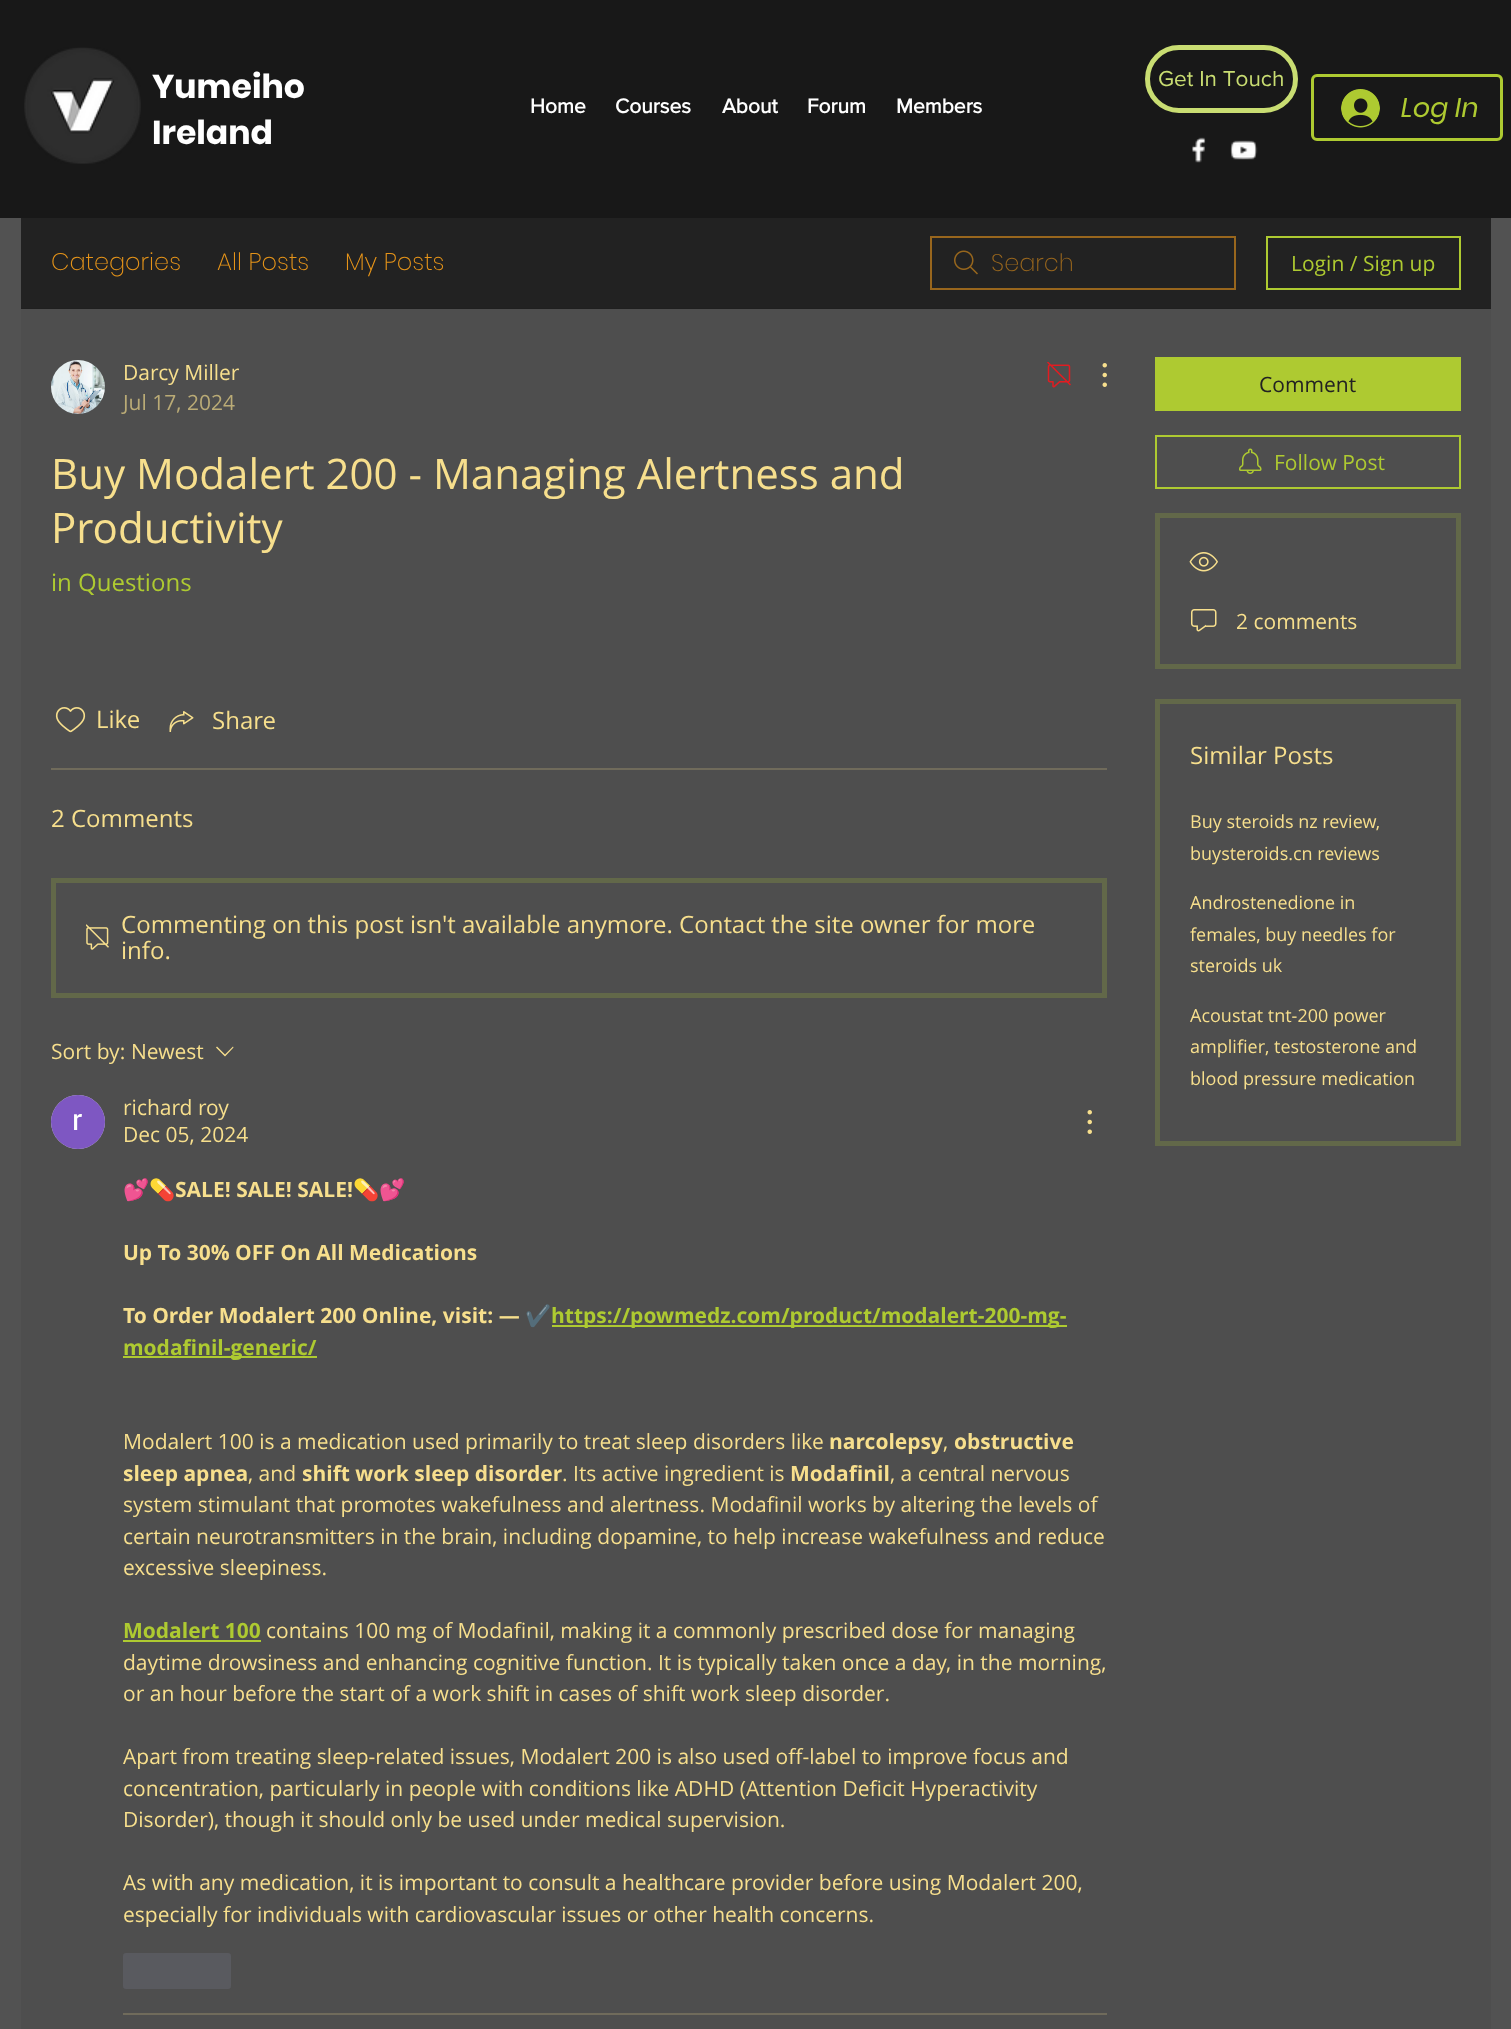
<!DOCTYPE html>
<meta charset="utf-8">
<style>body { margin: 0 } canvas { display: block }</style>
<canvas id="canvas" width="1511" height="2029"></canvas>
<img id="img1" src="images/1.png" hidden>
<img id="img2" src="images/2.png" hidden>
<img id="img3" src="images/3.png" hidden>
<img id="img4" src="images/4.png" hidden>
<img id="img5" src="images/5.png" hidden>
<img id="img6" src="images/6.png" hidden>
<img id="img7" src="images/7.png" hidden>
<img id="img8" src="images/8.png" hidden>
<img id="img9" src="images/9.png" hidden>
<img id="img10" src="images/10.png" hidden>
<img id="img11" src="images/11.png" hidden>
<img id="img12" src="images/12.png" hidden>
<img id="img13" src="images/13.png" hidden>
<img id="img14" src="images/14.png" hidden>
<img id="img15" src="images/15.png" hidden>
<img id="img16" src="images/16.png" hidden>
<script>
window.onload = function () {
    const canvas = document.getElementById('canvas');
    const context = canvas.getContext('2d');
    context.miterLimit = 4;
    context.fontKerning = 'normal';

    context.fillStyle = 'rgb(82, 82, 82)';
    context.fillRect(0, 0, 1511, 2029);
    context.fillStyle = 'rgb(24, 24, 24)';
    context.fillRect(0, 0, 1511, 218);
    context.drawImage(document.getElementById('img1'), 24, 47, 117, 117);
    context.beginPath();
    context.roundRect(1147.5, 47.5, 148, 63, 31.5);
    context.strokeStyle = 'rgb(201, 221, 114)';
    context.lineWidth = 5;
    context.stroke();
    context.beginPath();
    context.roundRect(1312.5, 75.5, 189, 64, 4.5);
    context.strokeStyle = 'rgb(174, 202, 49)';
    context.lineWidth = 3;
    context.stroke();
    context.drawImage(document.getElementById('img2'), 1341, 89, 39, 39);
    context.drawImage(document.getElementById('img3'), 1192, 137, 14, 26);
    context.drawImage(document.getElementById('img4'), 1230, 140, 28, 20);
    context.fillStyle = 'rgb(34, 34, 34)';
    context.fillRect(21, 218, 1470, 90);
    context.fillStyle = 'rgb(32, 32, 32)';
    context.fillRect(21, 308, 1470, 1);
    context.drawImage(document.getElementById('img5'), 954, 250, 24, 25);
    context.strokeStyle = 'rgb(152, 102, 29)';
    context.lineWidth = 2;
    context.strokeRect(931, 237, 304, 52);
    context.strokeStyle = 'rgb(174, 202, 49)';
    context.strokeRect(1267, 237, 193, 52);
    context.fillStyle = 'rgb(78, 78, 78)';
    context.fillRect(21, 309, 1470, 1720);
    context.drawImage(document.getElementById('img6'), 51, 360, 54, 54);
    context.drawImage(document.getElementById('img7'), 1047, 362, 24, 26);
    context.drawImage(document.getElementById('img8'), 1102, 363, 5, 24);
    context.drawImage(document.getElementById('img9'), 55, 707, 31, 26);
    context.drawImage(document.getElementById('img10'), 169, 711, 25, 21);
    context.fillStyle = 'rgb(112, 107, 91)';
    context.fillRect(51, 768, 1056, 2);
    context.strokeStyle = 'rgb(98, 104, 73)';
    context.lineWidth = 5;
    context.strokeRect(53.5, 880.5, 1051, 115);
    context.drawImage(document.getElementById('img11'), 86, 924, 23, 26);
    context.fillStyle = 'rgb(247, 223, 141)';
    context.beginPath();
    context.moveTo(233, 1046.5);
    context.lineTo(233.5, 1047.5);
    context.lineTo(225, 1056.5);
    context.lineTo(216, 1047.5);
    context.lineTo(217, 1046.5);
    context.lineTo(225, 1054.5);
    context.closePath();
    context.fill('evenodd');
    context.fillStyle = 'rgb(216, 216, 216)';
    context.beginPath();
    context.arc(78, 1122, 27, 0, 2 * Math.PI);
    context.fill();
    context.drawImage(document.getElementById('img12'), 51, 1095, 54, 54);
    context.drawImage(document.getElementById('img13'), 1087, 1110, 5, 24);
    context.fillStyle = 'rgb(174, 202, 49)';
    context.fillRect(552, 1325, 515, 2);
    context.fillRect(123, 1356, 194, 2);
    context.fillRect(123, 1640, 138, 2);
    context.fillStyle = 'rgb(89, 90, 95)';
    context.beginPath();
    context.roundRect(123, 1953, 108, 36, 3);
    context.fill();
    context.fillStyle = 'rgb(112, 107, 91)';
    context.fillRect(123, 2013, 984, 2);
    context.fillStyle = 'rgb(174, 202, 49)';
    context.fillRect(1155, 357, 306, 54);
    context.strokeStyle = 'rgb(174, 202, 49)';
    context.lineWidth = 2;
    context.strokeRect(1156, 436, 304, 52);
    context.drawImage(document.getElementById('img14'), 1239, 448, 23, 26);
    context.strokeStyle = 'rgb(98, 104, 73)';
    context.lineWidth = 5;
    context.strokeRect(1157.5, 515.5, 301, 151);
    context.drawImage(document.getElementById('img15'), 1189, 552, 29, 20);
    context.drawImage(document.getElementById('img16'), 1191, 609, 26, 23);
    context.strokeRect(1157.5, 701.5, 301, 442);
    context.font = 'bold 33px Poppins';
    context.fillStyle = 'rgb(255, 255, 255)';
    context.fillText('Yumeiho', 152, 98);
    context.fillText('Ireland', 152, 144);
    context.font = 'bold 21px "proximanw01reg"';
    context.fillText('Home', 530, 113);
    context.fillText('Courses', 615, 113);
    context.fillText('About', 722, 113);
    context.fillText('Forum', 807, 113);
    context.fillText('Members', 896, 113);
    context.font = '22.5px "proximanw01reg"';
    context.fillStyle = 'rgb(201, 221, 114)';
    context.fillText('Get In Touch', 1158, 86);
    context.font = 'italic 27px Poppins';
    context.fillStyle = 'rgb(174, 202, 49)';
    context.fillText('Log In', 1401, 117);
    context.font = '200 24px Poppins';
    context.fillStyle = 'rgb(230, 148, 25)';
    context.fillText('Categories', 51, 270);
    context.fillText('All Posts', 217, 270);
    context.fillText('My Posts', 345, 270);
    context.fillStyle = 'rgb(152, 102, 29)';
    context.fillText('Search', 991, 271);
    context.font = '21px Open Sans';
    context.fillStyle = 'rgb(174, 202, 49)';
    context.fillText('Login / Sign up', 1291, 271);
    context.fillStyle = 'rgb(247, 223, 141)';
    context.fillText('Darcy Miller', 123, 380);
    context.fillStyle = 'rgb(186, 171, 118)';
    context.fillText('Jul 17, 2024', 123, 410);
    context.font = '42px Open Sans';
    context.fillStyle = 'rgb(247, 223, 141)';
    context.fillText('Buy Modalert 200 - Managing Alertness and', 51, 489);
    context.fillText('Productivity', 51, 543);
    context.font = '24px Open Sans';
    context.fillStyle = 'rgb(174, 202, 49)';
    context.fillText('in Questions', 51, 591);
    context.fillStyle = 'rgb(247, 223, 141)';
    context.fillText('Like', 96, 728);
    context.fillText('Share', 212, 729);
    context.fillText('2 Comments', 51, 827);
    context.fillText('Commenting on this post isn\'t available anymore. Contact the site owner for more', 121, 933);
    context.fillText('info.', 121, 959);
    context.font = '21px Open Sans';
    context.fillText('Sort by:', 51, 1059);
    context.fillText('Newest', 131, 1059);
    context.fillText('richard roy', 123, 1115);
    context.fillText('Dec 05, 2024', 123, 1142);
    context.font = 'bold 21px Noto Color Emoji';
    context.fillText('💕💊', 123, 1197);
    context.font = 'bold 21px Open Sans';
    context.fillText('SALE! SALE! SALE!', 175, 1197);
    context.font = 'bold 21px Noto Color Emoji';
    context.fillText('💊💕', 353, 1197);
    context.font = 'bold 21px Open Sans';
    context.fillText('Up To 30% OFF On All Medications', 123, 1260);
    context.fillText('To Order Modalert 200 Online, visit: —', 123, 1323);
    context.font = 'bold 21px Noto Color Emoji';
    context.fillText('✔️', 525, 1323);
    context.font = 'bold 21px Open Sans';
    context.fillStyle = 'rgb(174, 202, 49)';
    context.fillText('https://powmedz.com/product/modalert-200-mg-', 551, 1323);
    context.fillText('modafinil-generic/', 123, 1355);
    context.font = '21px Open Sans';
    context.fillStyle = 'rgb(247, 223, 141)';
    context.fillText('Modalert 100 is a medication used primarily to treat sleep disorders like', 123, 1449);
    context.font = 'bold 21px Open Sans';
    context.fillText('narcolepsy', 829, 1449);
    context.font = '21px Open Sans';
    context.fillText(',', 943, 1449);
    context.font = 'bold 21px Open Sans';
    context.fillText('obstructive', 954, 1449);
    context.fillText('sleep apnea', 123, 1481);
    context.font = '21px Open Sans';
    context.fillText(', and', 248, 1481);
    context.font = 'bold 21px Open Sans';
    context.fillText('shift work sleep disorder', 302, 1481);
    context.font = '21px Open Sans';
    context.fillText('. Its active ingredient is', 562, 1481);
    context.font = 'bold 21px Open Sans';
    context.fillText('Modafinil', 790, 1481);
    context.font = '21px Open Sans';
    context.fillText(', a central nervous', 890, 1481);
    context.fillText('system stimulant that promotes wakefulness and alertness. Modafinil works by altering the levels of', 123, 1512);
    context.fillText('certain neurotransmitters in the brain, including dopamine, to help increase wakefulness and reduce', 123, 1544);
    context.fillText('excessive sleepiness.', 123, 1575);
    context.font = 'bold 21px Open Sans';
    context.fillStyle = 'rgb(174, 202, 49)';
    context.fillText('Modalert 100', 123, 1638);
    context.font = '21px Open Sans';
    context.fillStyle = 'rgb(247, 223, 141)';
    context.fillText('contains 100 mg of Modafinil, making it a commonly prescribed dose for managing', 266, 1638);
    context.fillText('daytime drowsiness and enhancing cognitive function. It is typically taken once a day, in the morning,', 123, 1670);
    context.fillText('or an hour before the start of a work shift in cases of shift work sleep disorder.', 123, 1701);
    context.fillText('Apart from treating sleep-related issues, Modalert 200 is also used off-label to improve focus and', 123, 1764);
    context.fillText('concentration, particularly in people with conditions like ADHD (Attention Deficit Hyperactivity', 123, 1796);
    context.fillText('Disorder), though it should only be used under medical supervision.', 123, 1827);
    context.fillText('As with any medication, it is important to consult a healthcare provider before using Modalert 200,', 123, 1890);
    context.fillText('especially for individuals with cardiovascular issues or other health concerns.', 123, 1922);
    context.fillStyle = 'rgb(34, 34, 34)';
    context.fillText('Comment', 1259, 392);
    context.fillStyle = 'rgb(174, 202, 49)';
    context.fillText('Follow Post', 1274, 470);
    context.fillStyle = 'rgb(247, 223, 141)';
    context.fillText('2 comments', 1236, 629);
    context.font = '24px Open Sans';
    context.fillText('Similar Posts', 1190, 764);
    context.font = '18px Open Sans';
    context.fillText('Buy steroids nz review,', 1190, 828);
    context.fillText('buysteroids.cn reviews', 1190, 860);
    context.fillText('Androstenedione in', 1190, 909);
    context.fillText('females, buy needles for', 1190, 941);
    context.fillText('steroids uk', 1190, 972);
    context.fillText('Acoustat tnt-200 power', 1190, 1022);
    context.fillText('amplifier, testosterone and', 1190, 1053);
    context.fillText('blood pressure medication', 1190, 1085);
};
</script>
